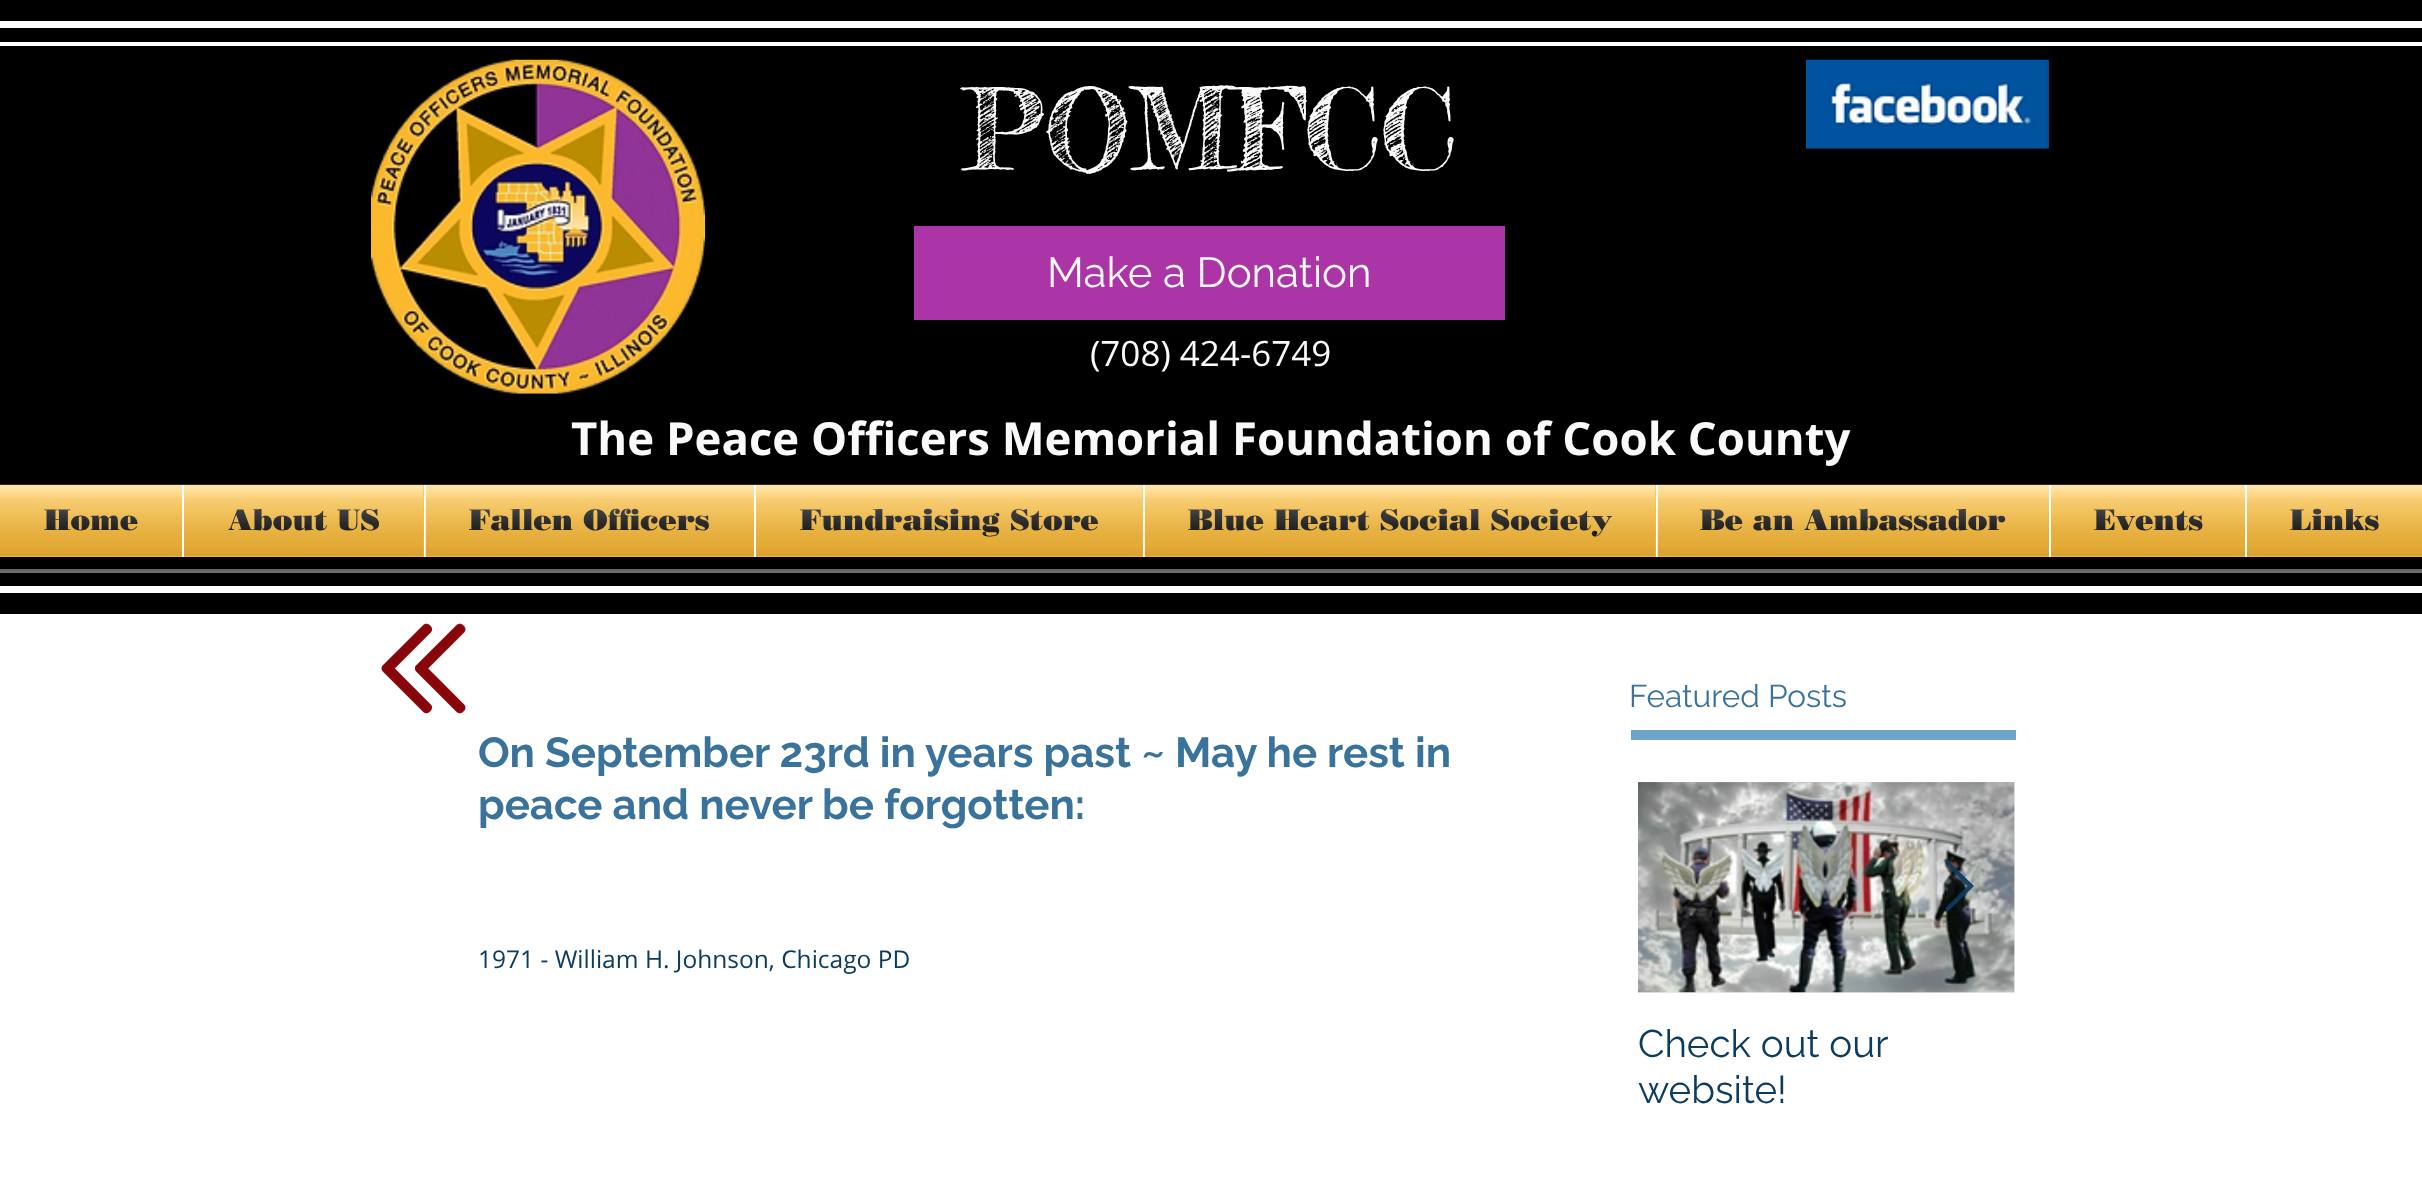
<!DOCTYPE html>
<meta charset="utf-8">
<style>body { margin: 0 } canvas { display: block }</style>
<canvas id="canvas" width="2422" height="1184"></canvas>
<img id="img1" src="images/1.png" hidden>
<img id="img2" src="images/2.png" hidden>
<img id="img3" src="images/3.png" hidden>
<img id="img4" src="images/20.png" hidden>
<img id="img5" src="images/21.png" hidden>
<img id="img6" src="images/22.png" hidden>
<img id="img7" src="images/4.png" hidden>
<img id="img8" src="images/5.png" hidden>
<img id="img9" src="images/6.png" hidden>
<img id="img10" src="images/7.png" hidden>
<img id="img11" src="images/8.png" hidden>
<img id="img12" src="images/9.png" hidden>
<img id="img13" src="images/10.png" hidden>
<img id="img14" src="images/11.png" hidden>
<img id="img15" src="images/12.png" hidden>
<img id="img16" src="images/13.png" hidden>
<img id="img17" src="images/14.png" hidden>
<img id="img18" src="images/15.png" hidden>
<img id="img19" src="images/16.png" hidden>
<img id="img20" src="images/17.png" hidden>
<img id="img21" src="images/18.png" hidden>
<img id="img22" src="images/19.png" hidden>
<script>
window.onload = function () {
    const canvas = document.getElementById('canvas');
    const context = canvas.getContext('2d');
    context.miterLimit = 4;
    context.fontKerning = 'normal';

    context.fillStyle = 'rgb(255, 255, 255)';
    context.fillRect(0, 0, 2422, 1184);
    context.fillStyle = 'rgb(0, 0, 0)';
    context.fillRect(0, 0, 2422, 614);
    context.fillStyle = 'rgb(255, 255, 255)';
    context.fillRect(0, 21, 2422, 7);
    context.fillRect(0, 586, 2422, 7);
    context.fillRect(0, 42, 2422, 4);
    context.fillRect(0, 569, 2422, 4);
    context.drawImage(document.getElementById('img1'), 371, 59, 335, 335);
    context.drawImage(document.getElementById('img2'), 1806, 59, 244, 90);
    context.fillStyle = 'rgb(171, 53, 167)';
    context.fillRect(914, 226, 591, 94);
    context.fillStyle = 'rgba(0, 0, 0, 0.6)';
    context.filter = 'blur(3.5px)';
    context.beginPath();
    context.rect(-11, 464, 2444, 114);
    context.fill();
    context.filter = 'none';
    context.drawImage(document.getElementById('img3'), 0, 484, 2422, 1);
    context.fillStyle = 'rgb(253, 186, 46)';
    context.fillRect(0, 485, 182, 72);
    context.fillRect(184, 485, 240, 72);
    context.fillStyle = 'rgb(255, 255, 255)';
    context.fillRect(182, 485, 2, 72);
    context.fillStyle = 'rgb(253, 186, 46)';
    context.fillRect(426, 485, 328, 72);
    context.fillStyle = 'rgb(255, 255, 255)';
    context.fillRect(424, 485, 2, 72);
    context.fillStyle = 'rgb(253, 186, 46)';
    context.fillRect(756, 485, 387, 72);
    context.fillStyle = 'rgb(255, 255, 255)';
    context.fillRect(754, 485, 2, 72);
    context.fillStyle = 'rgb(253, 186, 46)';
    context.fillRect(1145, 485, 511, 72);
    context.fillStyle = 'rgb(255, 255, 255)';
    context.fillRect(1143, 485, 2, 72);
    context.fillStyle = 'rgb(253, 186, 46)';
    context.fillRect(1658, 485, 391, 72);
    context.fillStyle = 'rgb(255, 255, 255)';
    context.fillRect(1656, 485, 2, 72);
    context.fillStyle = 'rgb(253, 186, 46)';
    context.fillRect(2051, 485, 194, 72);
    context.fillStyle = 'rgb(255, 255, 255)';
    context.fillRect(2049, 485, 2, 72);
    context.fillStyle = 'rgb(253, 186, 46)';
    context.fillRect(2247, 485, 175, 72);
    context.fillStyle = 'rgb(255, 255, 255)';
    context.fillRect(2245, 485, 2, 72);
    context.drawImage(document.getElementById('img4'), 381, 623, 85, 91);
    context.fillStyle = 'rgb(110, 164, 202)';
    context.fillRect(1631, 730, 385, 10);
    context.drawImage(document.getElementById('img5'), 1638, 782, 377, 211);
    context.drawImage(document.getElementById('img6'), 1638, 782, 377, 211);
    context.fillStyle = 'rgba(12, 60, 96, 0.9)';
    context.beginPath();
    context.moveTo(1946, 863);
    context.lineTo(1948, 861);
    context.lineTo(1973, 886);
    context.lineTo(1948, 911);
    context.lineTo(1946, 909);
    context.lineTo(1969, 886);
    context.closePath();
    context.fill();
    context.beginPath();
    context.moveTo(1946, 863.5);
    context.lineTo(1948, 861.5);
    context.lineTo(1973, 886);
    context.lineTo(1948, 910.5);
    context.lineTo(1946, 908.5);
    context.lineTo(1968.5, 886);
    context.closePath();
    context.strokeStyle = 'rgba(12, 60, 96, 0.9)';
    context.lineWidth = 1.4;
    context.stroke();
    context.font = '112px Fredericka the Great';
    context.fillStyle = 'rgb(250, 250, 250)';
    context.fillText('POMFCC', 963, 170);
    context.font = '42px Raleway';
    context.fillText('Make a Donation', 1047, 287);
    context.font = '35px Open Sans';
    context.fillText('(708) 424-6749', 1090, 366);
    context.font = 'bold 45.5px Open Sans';
    context.fillText('The Peace Officers Memorial Foundation of Cook County', 571, 455);
    context.font = '900 29.75px "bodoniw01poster"';
    context.fillStyle = 'rgb(0, 0, 0)';
    context.fillText('Home', 44, 530);
    context.drawImage(document.getElementById('img7'), 0, 484, 182, 72);
    context.drawImage(document.getElementById('img8'), 0, 498, 182, 59);
    context.fillText('About US', 228, 530);
    context.drawImage(document.getElementById('img9'), 184, 484, 240, 72);
    context.drawImage(document.getElementById('img10'), 183, 498, 241, 59);
    context.fillText('Fallen Officers', 469, 530);
    context.drawImage(document.getElementById('img11'), 425, 484, 329, 72);
    context.drawImage(document.getElementById('img12'), 425, 498, 329, 59);
    context.fillText('Fundraising Store', 800, 530);
    context.drawImage(document.getElementById('img13'), 756, 484, 387, 72);
    context.drawImage(document.getElementById('img14'), 756, 498, 387, 59);
    context.fillText('Blue Heart Social Society', 1188, 530);
    context.drawImage(document.getElementById('img15'), 1144, 484, 512, 72);
    context.drawImage(document.getElementById('img16'), 1144, 498, 512, 59);
    context.fillText('Be an Ambassador', 1700, 530);
    context.drawImage(document.getElementById('img17'), 1657, 484, 392, 72);
    context.drawImage(document.getElementById('img18'), 1657, 498, 392, 59);
    context.fillText('Events', 2094, 530);
    context.drawImage(document.getElementById('img19'), 2051, 484, 194, 72);
    context.drawImage(document.getElementById('img20'), 2051, 498, 194, 59);
    context.fillText('Links', 2290, 530);
    context.drawImage(document.getElementById('img21'), 2247, 484, 175, 72);
    context.drawImage(document.getElementById('img22'), 2247, 498, 175, 59);
    context.font = '31.5px Raleway';
    context.fillStyle = 'rgb(57, 114, 155)';
    context.fillText('Featured Posts', 1629, 707);
    context.font = 'bold 42px Raleway';
    context.fillText('On September 23rd in years past ~ May he rest in', 478, 767);
    context.fillText('peace and never be forgotten:', 478, 819);
    context.font = '24.5px Open Sans';
    context.fillStyle = 'rgb(12, 60, 96)';
    context.fillText('1971 - William H. Johnson, Chicago PD', 478, 968);
    context.font = '38.5px Raleway';
    context.fillText('Check out our', 1638, 1057);
    context.fillText('website!', 1638, 1103);
};
</script>
